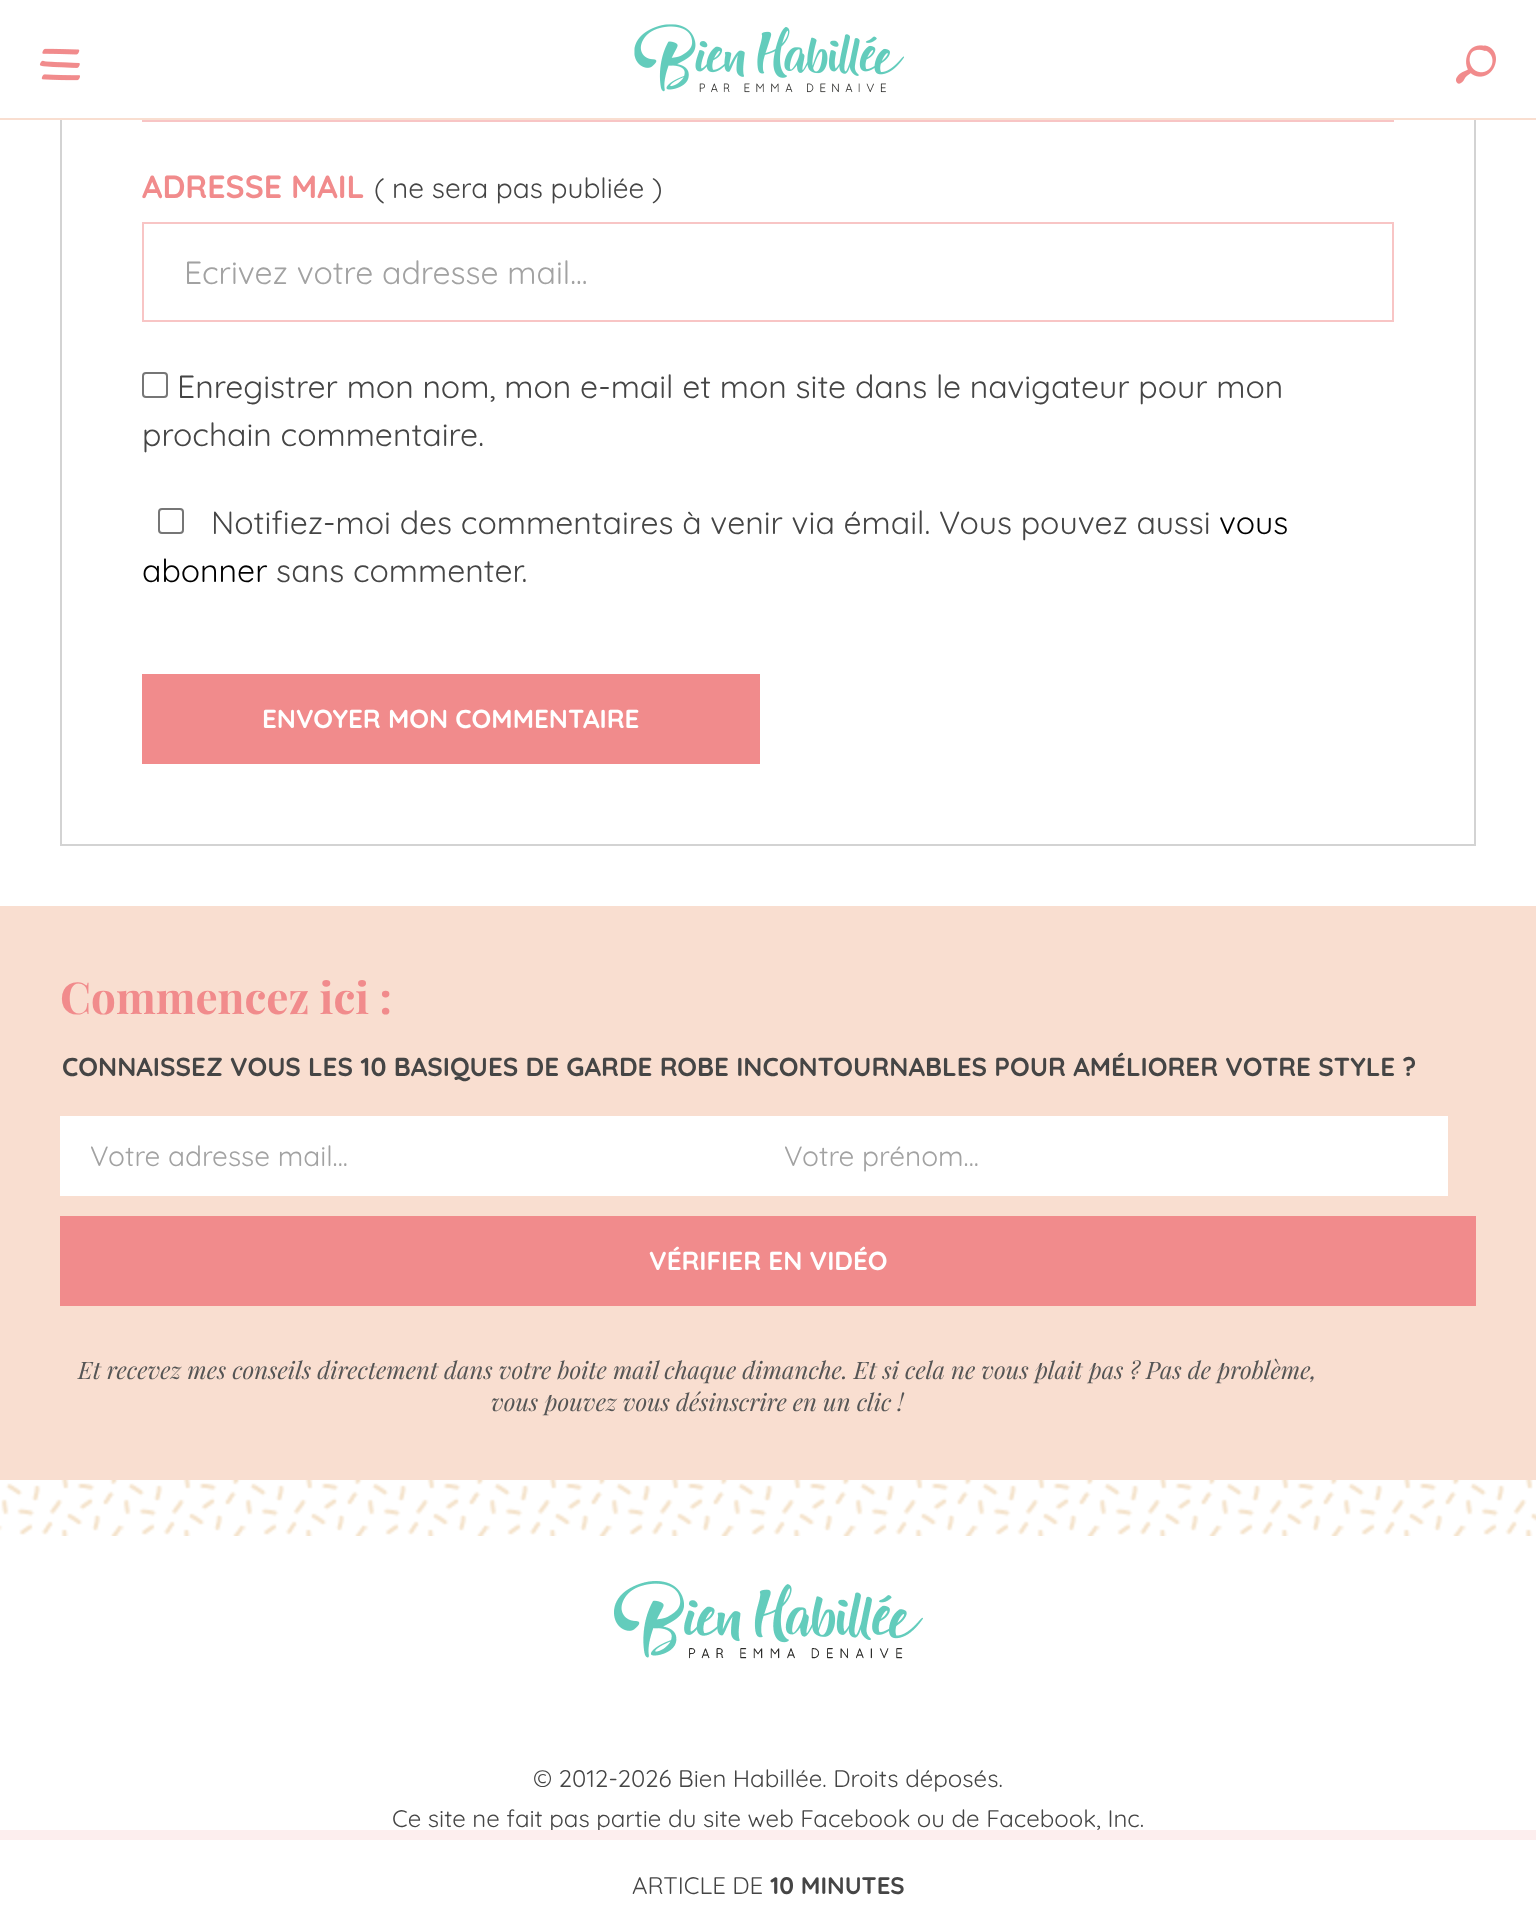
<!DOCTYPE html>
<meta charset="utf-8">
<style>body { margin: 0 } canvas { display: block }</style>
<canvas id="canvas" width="1536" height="1930"></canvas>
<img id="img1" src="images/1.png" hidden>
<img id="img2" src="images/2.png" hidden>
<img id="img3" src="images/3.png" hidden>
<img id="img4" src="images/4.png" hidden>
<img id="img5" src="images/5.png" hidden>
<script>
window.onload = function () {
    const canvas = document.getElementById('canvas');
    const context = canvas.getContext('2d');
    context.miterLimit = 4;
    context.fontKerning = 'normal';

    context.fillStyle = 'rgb(255, 255, 255)';
    context.fillRect(0, 0, 1536, 1930);
    context.strokeStyle = 'rgb(248, 197, 197)';
    context.lineWidth = 2;
    context.strokeRect(143, 23, 1250, 98);
    context.fillRect(142, 22, 1252, 96);
    context.fillStyle = 'rgb(249, 222, 208)';
    context.fillRect(0, 118, 1536, 2);
    context.drawImage(document.getElementById('img1'), 39, 48, 41, 33);
    context.drawImage(document.getElementById('img2'), 634, 24, 270, 69);
    context.drawImage(document.getElementById('img3'), 1456, 45, 40, 39);
    context.fillStyle = 'rgb(211, 211, 211)';
    context.fillRect(1474, 120, 2, 726);
    context.fillRect(60, 844, 1416, 2);
    context.fillRect(60, 120, 2, 726);
    context.strokeRect(143, 223, 1250, 98);
    context.beginPath();
    context.roundRect(143, 373, 24, 24, 3);
    context.strokeStyle = 'rgb(118, 118, 118)';
    context.stroke();
    context.beginPath();
    context.roundRect(159, 509, 24, 24, 3);
    context.stroke();
    context.fillStyle = 'rgb(241, 139, 140)';
    context.fillRect(142, 674, 618, 90);
    context.fillStyle = 'rgb(249, 222, 208)';
    context.fillRect(0, 906, 1536, 574);
    context.fillStyle = 'rgb(255, 255, 255)';
    context.fillRect(60, 1116, 1388, 80);
    context.fillStyle = 'rgb(241, 139, 140)';
    context.fillRect(60, 1216, 1416, 90);
    context.drawImage(document.getElementById('img4'), 0, 1480, 1536, 56);
    context.drawImage(document.getElementById('img5'), 614, 1581, 309, 78);
    context.font = 'bold 32px Quicksand';
    context.fillText('ADRESSE MAIL', 142, 198);
    context.font = '28px Quicksand';
    context.fillStyle = 'rgb(69, 69, 69)';
    context.fillText('( ne sera pas publiée )', 374, 198);
    context.font = '32px Quicksand';
    context.fillStyle = 'rgb(162, 162, 162)';
    context.fillText('Ecrivez votre adresse mail...', 184, 284);
    context.fillStyle = 'rgb(69, 69, 69)';
    context.fillText('Enregistrer mon nom, mon e-mail et mon site dans le navigateur pour mon', 177, 398);
    context.fillText('prochain commentaire.', 142, 446);
    context.fillText('Notifiez-moi des commentaires à venir via émail. Vous pouvez aussi', 211, 534);
    context.fillStyle = 'rgb(0, 0, 0)';
    context.fillText('vous', 1219, 534);
    context.fillText('abonner', 142, 582);
    context.fillStyle = 'rgb(69, 69, 69)';
    context.fillText('sans commenter.', 276, 582);
    context.font = 'bold 26px Quicksand';
    context.fillStyle = 'rgb(255, 255, 255)';
    context.fillText('ENVOYER MON COMMENTAIRE', 262, 728);
    context.font = '24px Quicksand';
    context.fillStyle = 'rgb(69, 69, 69)';
    context.fillText('ARTICLE DE', 632, 1894);
    context.font = 'bold 24px Quicksand';
    context.fillText('10 MINUTES', 770, 1894);
    context.font = 'bold 44px Playfair Display';
    context.fillStyle = 'rgb(241, 139, 140)';
    context.fillText('Commencez ici :', 60, 1014);
    context.font = 'bold 26px Quicksand';
    context.fillStyle = 'rgb(69, 69, 69)';
    context.fillText('CONNAISSEZ VOUS LES 10 BASIQUES DE GARDE ROBE INCONTOURNABLES POUR AMÉLIORER VOTRE STYLE ?', 62, 1076);
    context.font = '28px Quicksand';
    context.fillStyle = 'rgb(162, 162, 162)';
    context.fillText('Votre adresse mail...', 90, 1166);
    context.fillText('Votre prénom...', 784, 1166);
    context.font = 'bold 26px Quicksand';
    context.fillStyle = 'rgb(255, 255, 255)';
    context.fillText('VÉRIFIER EN VIDÉO', 649, 1270);
    context.font = 'italic 24px Playfair Display';
    context.fillStyle = 'rgb(85, 85, 85)';
    context.fillText('Et recevez mes conseils directement dans votre boite mail chaque dimanche. Et si cela ne vous plait pas ? Pas de problème,', 78, 1379);
    context.fillText('vous pouvez vous désinscrire en un clic !', 491, 1411);
    context.font = '24px Quicksand';
    context.fillStyle = 'rgb(69, 69, 69)';
    context.fillText('© 2012-2026 Bien Habillée. Droits déposés.', 533, 1787);
    context.fillText('Ce site ne fait pas partie du site web Facebook ou de Facebook, Inc.', 392, 1827);
    context.fillStyle = 'rgb(253, 238, 238)';
    context.fillRect(0, 1830, 1536, 10);
};
</script>
